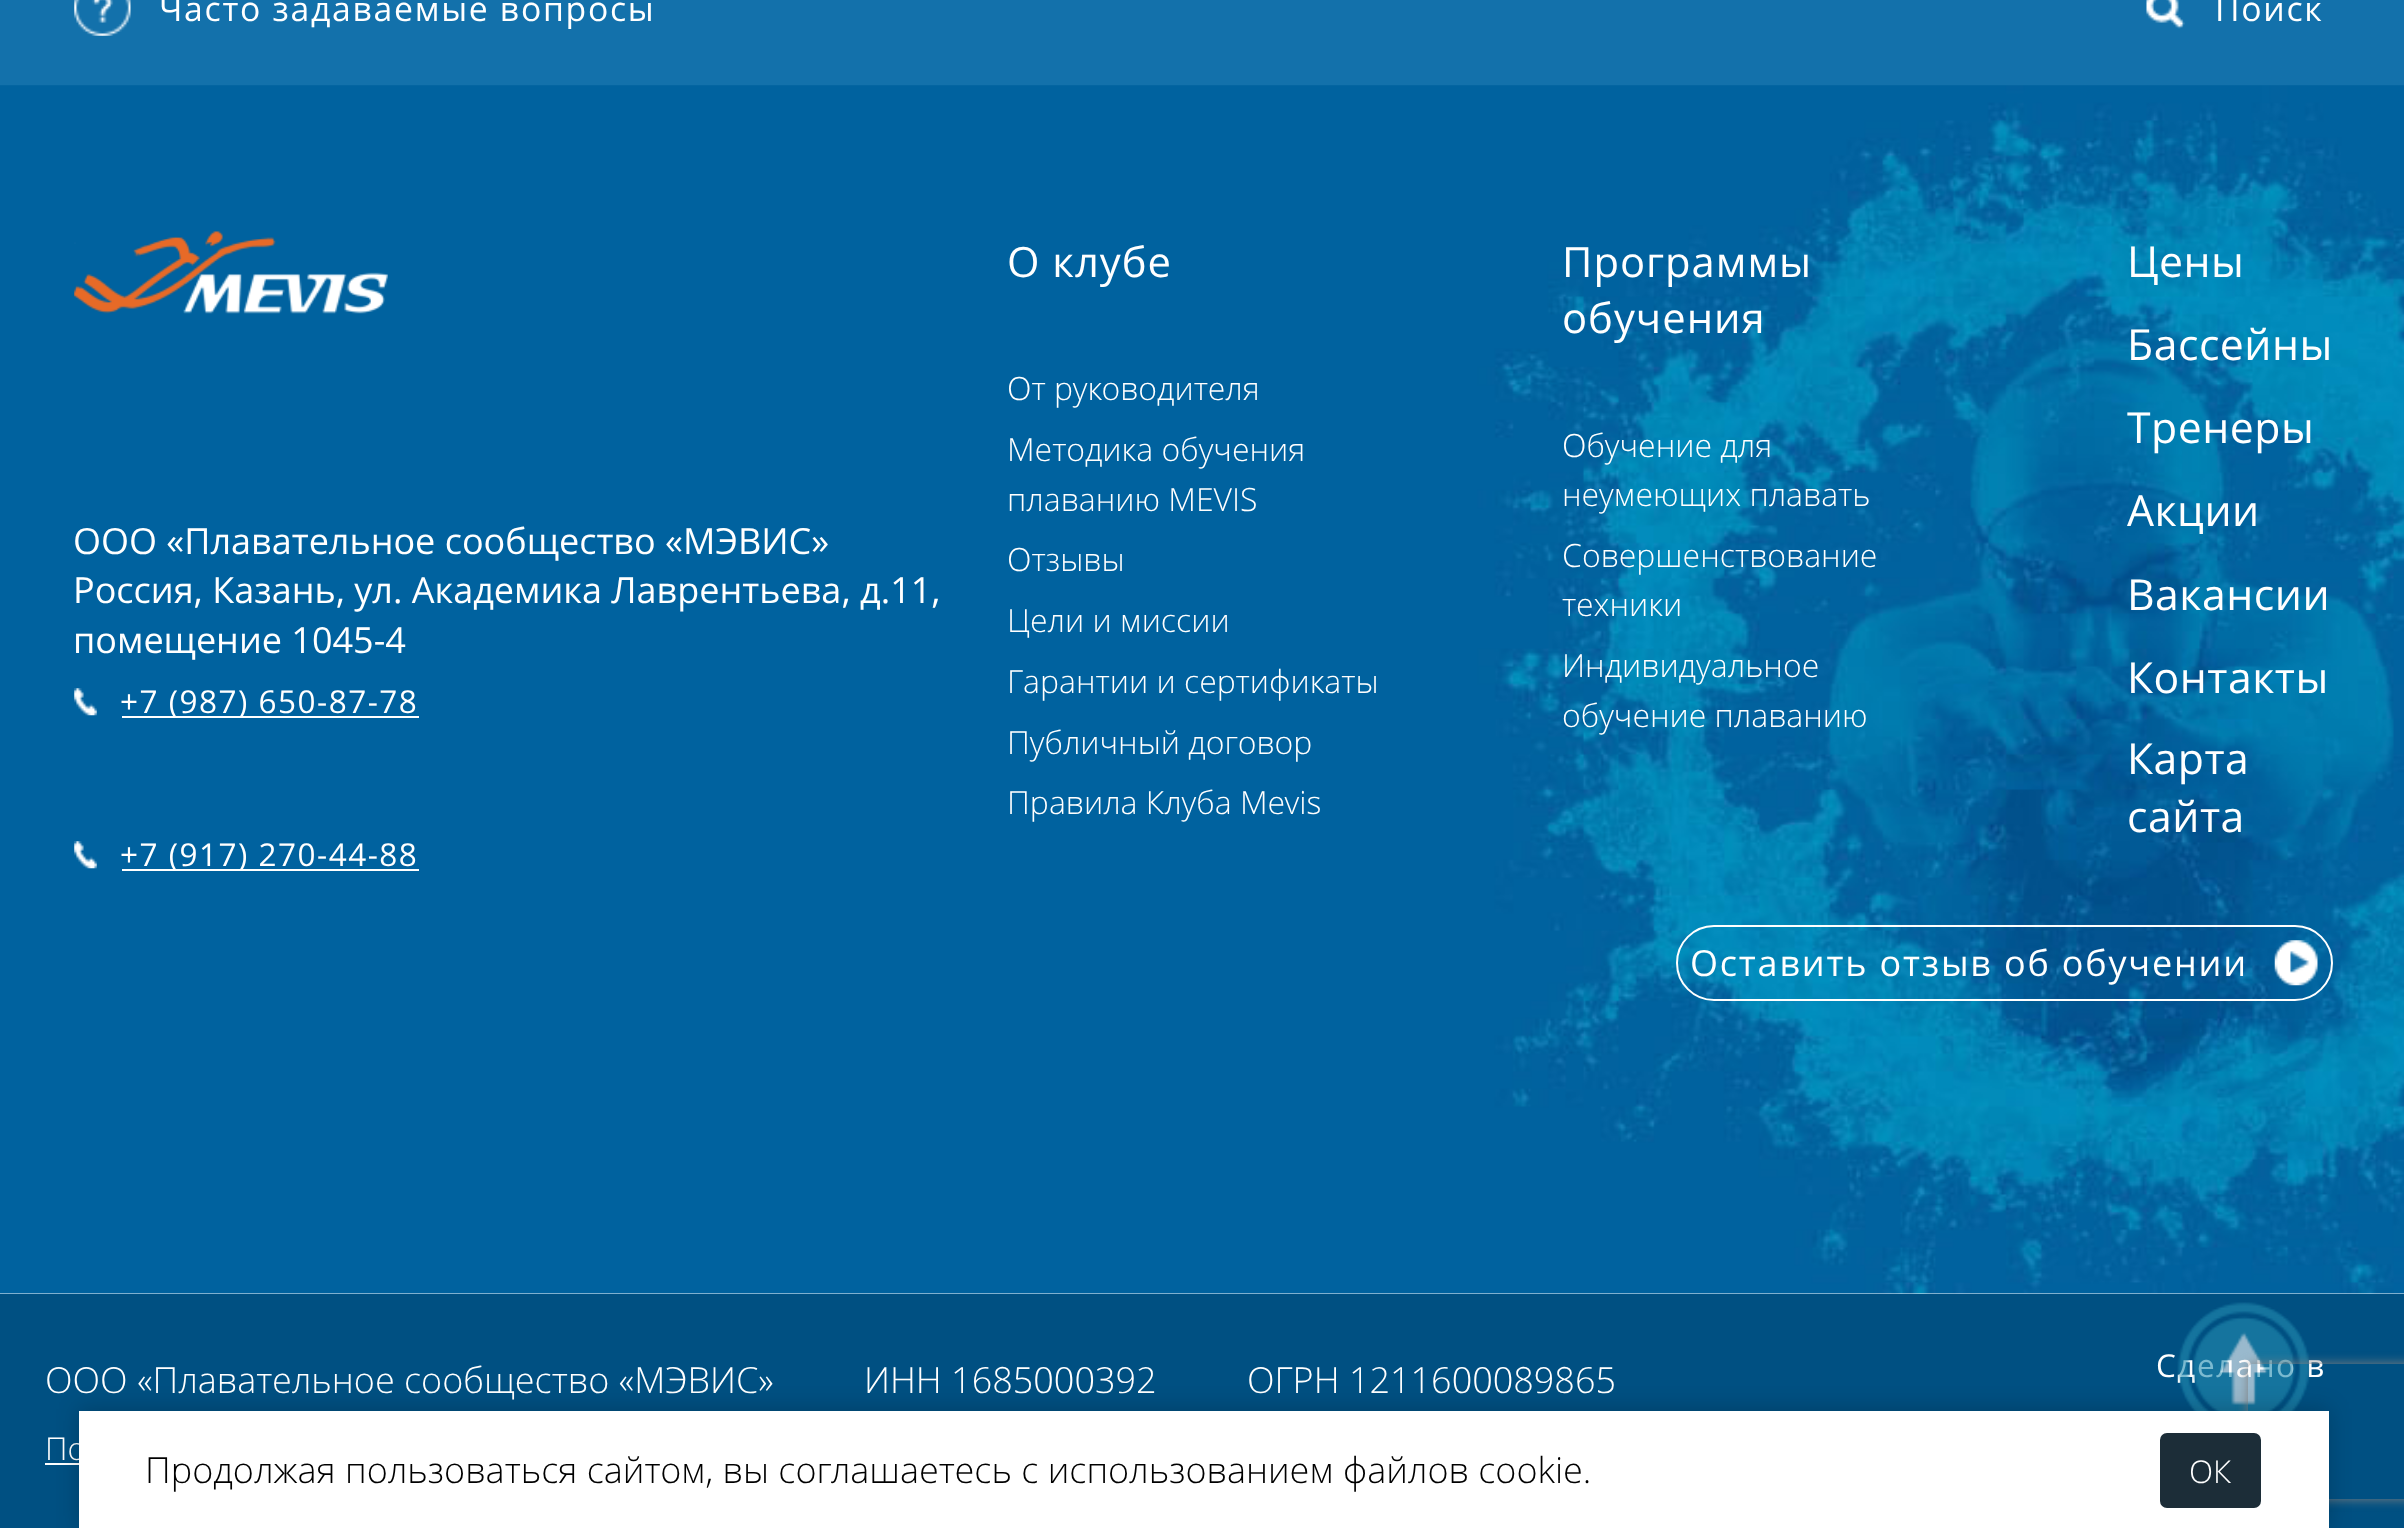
<!DOCTYPE html>
<meta charset="utf-8">
<style>body { margin: 0 } canvas { display: block }</style>
<canvas id="canvas" width="2404" height="1528"></canvas>
<img id="img1" src="images/1.png" hidden>
<img id="img2" src="images/2.png" hidden>
<img id="img3" src="images/3.png" hidden>
<img id="img4" src="images/4.png" hidden>
<img id="img5" src="images/5.png" hidden>
<img id="img6" src="images/6.png" hidden>
<img id="img7" src="images/7.png" hidden>
<script>
window.onload = function () {
    const canvas = document.getElementById('canvas');
    const context = canvas.getContext('2d');
    context.miterLimit = 4;
    context.fontKerning = 'normal';

    context.fillStyle = 'rgb(255, 255, 255)';
    context.fillRect(0, 0, 2404, 1528);
    context.fillStyle = 'rgb(19, 113, 171)';
    context.fillRect(0, 0, 2404, 86);
    context.drawImage(document.getElementById('img1'), 74, 0, 57, 36);
    context.drawImage(document.getElementById('img2'), 2146, 0, 39, 29);
    context.drawImage(document.getElementById('img3'), 0, 85, 2404, 1209);
    context.drawImage(document.getElementById('img4'), 74, 231, 314, 83);
    context.drawImage(document.getElementById('img5'), 74, 688, 23, 28);
    context.fillStyle = 'rgb(255, 255, 255)';
    context.fillRect(122, 716, 297, 2);
    context.drawImage(document.getElementById('img5'), 74, 841, 23, 28);
    context.fillRect(122, 869, 297, 2);
    context.beginPath();
    context.roundRect(1677, 926, 655, 74, 37);
    context.strokeStyle = 'rgb(255, 255, 255)';
    context.lineWidth = 2;
    context.stroke();
    context.drawImage(document.getElementById('img6'), 2274, 940, 44, 46);
    context.fillStyle = 'rgb(0, 80, 130)';
    context.fillRect(0, 1294, 2404, 234);
    context.fillStyle = 'rgb(255, 255, 255)';
    context.fillRect(45, 1463, 34, 2);
    context.letterSpacing = '1.7px';
    context.font = '33.75px Open Sans';
    context.fillText('Часто задаваемые вопросы', 159, 21);
    context.fillText('Поиск', 2215, 21);
    context.letterSpacing = '0px';
    context.font = '36px Open Sans';
    context.fillText('ООО «Плавательное сообщество «МЭВИС»', 73, 554);
    context.fillText('Россия, Казань, ул. Академика Лаврентьева, д.11,', 73, 603);
    context.fillText('помещение 1045-4', 73, 653);
    context.letterSpacing = '1.5px';
    context.font = '31.5px Open Sans';
    context.fillText('+7 (987) 650-87-78', 120, 713);
    context.fillText('+7 (917) 270-44-88', 120, 866);
    context.letterSpacing = '1px';
    context.font = '41.75px Open Sans';
    context.fillText('О клубе', 1007, 277);
    context.letterSpacing = '0px';
    context.font = '300 32px Open Sans';
    context.fillText('От руководителя', 1007, 400);
    context.fillText('Методика обучения', 1007, 461);
    context.fillText('плаванию MEVIS', 1007, 511);
    context.fillText('Отзывы', 1007, 571);
    context.fillText('Цели и миссии', 1007, 632);
    context.fillText('Гарантии и сертификаты', 1007, 693);
    context.fillText('Публичный договор', 1007, 754);
    context.fillText('Правила Клуба Mevis', 1007, 814);
    context.letterSpacing = '1px';
    context.font = '41.75px Open Sans';
    context.fillText('Программы', 1562, 277);
    context.fillText('обучения', 1562, 333);
    context.letterSpacing = '0px';
    context.font = '300 32px Open Sans';
    context.fillText('Обучение для', 1562, 457);
    context.fillText('неумеющих плавать', 1562, 506);
    context.fillText('Совершенствование', 1562, 567);
    context.fillText('техники', 1562, 616);
    context.fillText('Индивидуальное', 1562, 677);
    context.fillText('обучение плаванию', 1562, 727);
    context.letterSpacing = '0.5px';
    context.font = '42.75px Open Sans';
    context.fillText('Цены', 2127, 277);
    context.fillText('Бассейны', 2127, 360);
    context.fillText('Тренеры', 2127, 443);
    context.fillText('Акции', 2127, 526);
    context.fillText('Вакансии', 2127, 610);
    context.fillText('Контакты', 2127, 693);
    context.fillText('Карта', 2127, 774);
    context.fillText('сайта', 2127, 832);
    context.letterSpacing = '1.8px';
    context.font = '36px Open Sans';
    context.fillText('Оставить отзыв об обучении', 1690, 976);
    context.letterSpacing = '0px';
    context.font = '300 36px Open Sans';
    context.fillText('ООО «Плавательное сообщество «МЭВИС»', 45, 1393);
    context.fillText('ИНН 1685000392', 864, 1393);
    context.fillText('ОГРН 1211600089865', 1247, 1393);
    context.font = '300 31.5px Open Sans';
    context.fillText('По', 45, 1460);
    context.letterSpacing = '1.5px';
    context.font = '31.5px Open Sans';
    context.fillText('Сделано в', 2156, 1377);
    context.drawImage(document.getElementById('img7'), 2177, 1302, 134, 109);
    context.save();
    context.beginPath();
    context.moveTo(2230, 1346);
    context.lineTo(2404, 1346);
    context.lineTo(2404, 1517);
    context.lineTo(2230, 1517);
    context.closePath();
    context.moveTo(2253, 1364);
    context.lineTo(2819, 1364);
    context.bezierCurveTo(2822, 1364, 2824, 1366, 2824, 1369);
    context.lineTo(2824, 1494);
    context.bezierCurveTo(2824, 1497, 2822, 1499, 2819, 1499);
    context.lineTo(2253, 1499);
    context.bezierCurveTo(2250, 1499, 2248, 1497, 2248, 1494);
    context.lineTo(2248, 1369);
    context.bezierCurveTo(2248, 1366, 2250, 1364, 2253, 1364);
    context.closePath();
    context.clip('evenodd');
    context.fillStyle = 'rgb(128, 128, 128)';
    context.filter = 'blur(5.5px)';
    context.beginPath();
    context.roundRect(2248, 1364, 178, 135, 5);
    context.fill();
    context.filter = 'none';
    context.restore();
    context.fillStyle = 'rgba(0, 0, 0, 0.2)';
    context.filter = 'blur(11px)';
    context.beginPath();
    context.rect(79, 1409, 2250, 119);
    context.fill();
    context.filter = 'none';
    context.fillStyle = 'rgb(255, 255, 255)';
    context.fillRect(79, 1411, 2250, 117);
    context.letterSpacing = '0px';
    context.font = '300 36px Open Sans';
    context.fillStyle = 'rgb(0, 0, 0)';
    context.fillText('Продолжая пользоваться сайтом, вы соглашаетесь с использованием файлов cookie.', 145, 1483);
    context.fillStyle = 'rgb(28, 45, 56)';
    context.beginPath();
    context.roundRect(2161, 1434, 99, 73, 6);
    context.fill();
    context.strokeStyle = 'rgb(28, 45, 56)';
    context.stroke();
    context.font = '300 31.5px Open Sans';
    context.fillStyle = 'rgb(255, 255, 255)';
    context.fillText('ОК', 2189, 1483);
};
</script>
